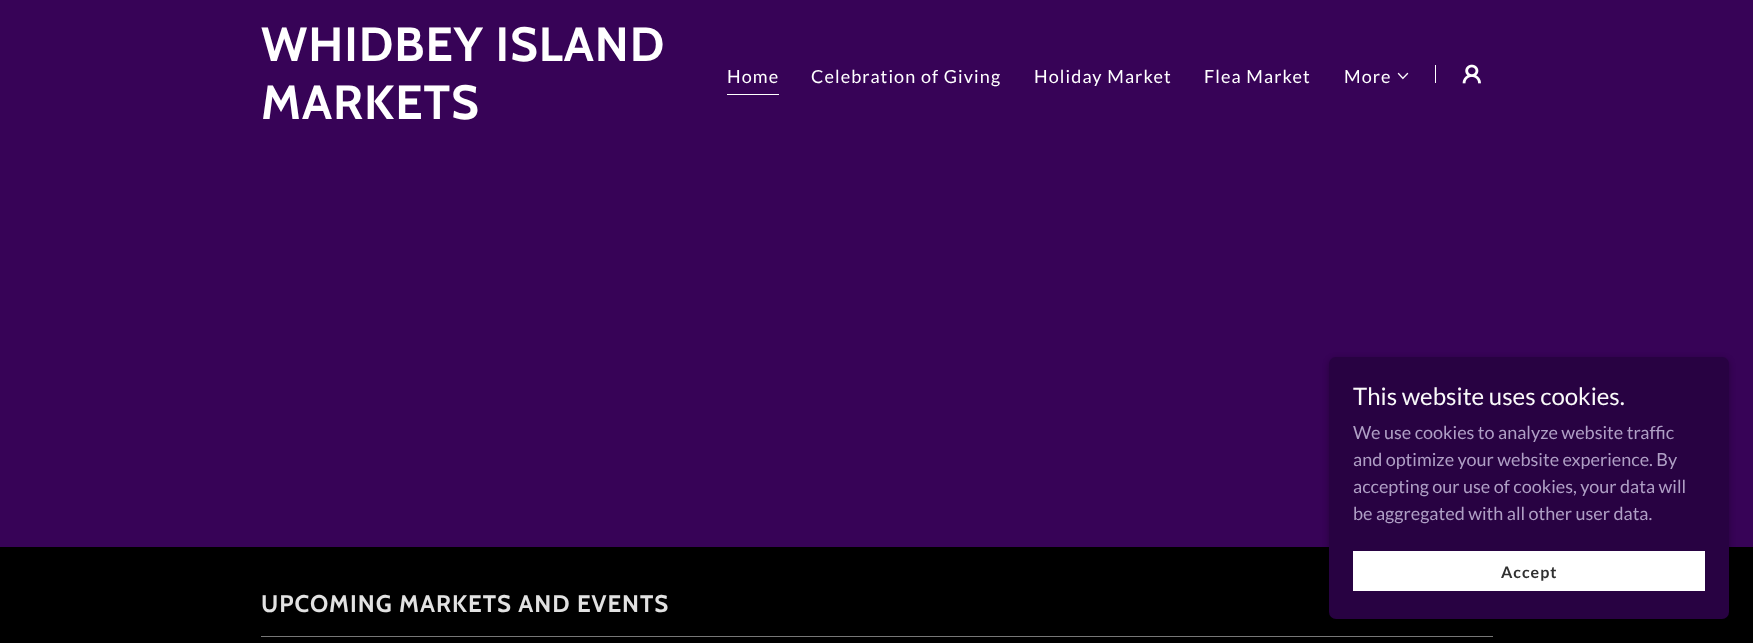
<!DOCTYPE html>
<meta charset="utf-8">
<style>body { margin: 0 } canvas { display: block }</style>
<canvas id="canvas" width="1753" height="643"></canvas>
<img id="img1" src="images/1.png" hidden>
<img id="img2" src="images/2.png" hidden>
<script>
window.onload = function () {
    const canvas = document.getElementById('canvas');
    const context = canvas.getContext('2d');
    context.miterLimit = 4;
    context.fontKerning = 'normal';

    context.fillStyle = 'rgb(55, 3, 87)';
    context.fillRect(0, 0, 1753, 643);
    context.fillStyle = 'rgb(255, 255, 255)';
    context.fillRect(727, 94, 52, 1);
    context.drawImage(document.getElementById('img1'), 1397, 72, 12, 8);
    context.fillRect(1435, 65, 1, 18);
    context.drawImage(document.getElementById('img2'), 1462, 64, 19, 20);
    context.fillStyle = 'rgb(0, 0, 0)';
    context.fillRect(0, 547, 1753, 96);
    context.fillStyle = 'rgba(0, 0, 0, 0.3)';
    context.filter = 'blur(3px)';
    context.beginPath();
    context.roundRect(1329, 359, 400, 262, 7);
    context.fill();
    context.filter = 'none';
    context.fillStyle = 'rgb(40, 2, 66)';
    context.beginPath();
    context.roundRect(1329, 357, 400, 262, 7);
    context.fill();
    context.fillStyle = 'rgb(255, 255, 255)';
    context.fillRect(1353, 551, 352, 40);
    context.fillStyle = 'rgb(119, 119, 119)';
    context.fillRect(261, 636, 1232, 1);
    context.letterSpacing = '1px';
    context.font = 'bold 48px Cabin';
    context.fillStyle = 'rgb(255, 255, 255)';
    context.fillText('WHIDBEY ISLAND', 261, 61);
    context.fillText('MARKETS', 261, 119);
    context.letterSpacing = '1.1px';
    context.font = '18px Lato';
    context.fillText('Home', 727, 83);
    context.fillText('Celebration of Giving', 811, 83);
    context.fillText('Holiday Market', 1034, 83);
    context.fillText('Flea Market', 1204, 83);
    context.fillText('More', 1344, 83);
    context.letterSpacing = '0px';
    context.font = '24px Lato';
    context.fillStyle = 'rgb(249, 249, 249)';
    context.fillText('This website uses cookies.', 1353, 405);
    context.font = '18px Lato';
    context.fillStyle = 'rgb(175, 159, 197)';
    context.fillText('We use cookies to analyze website traffic', 1353, 439);
    context.fillText('and optimize your website experience. By', 1353, 466);
    context.fillText('accepting our use of cookies, your data will', 1353, 493);
    context.fillText('be aggregated with all other user data.', 1353, 520);
    context.letterSpacing = '1px';
    context.font = 'bold 16px Lato';
    context.fillStyle = 'rgb(48, 48, 48)';
    context.fillText('Accept', 1501, 578);
    context.font = 'bold 24px Cabin';
    context.fillStyle = 'rgb(226, 226, 226)';
    context.fillText('UPCOMING MARKETS AND EVENTS', 261, 612);
};
</script>
